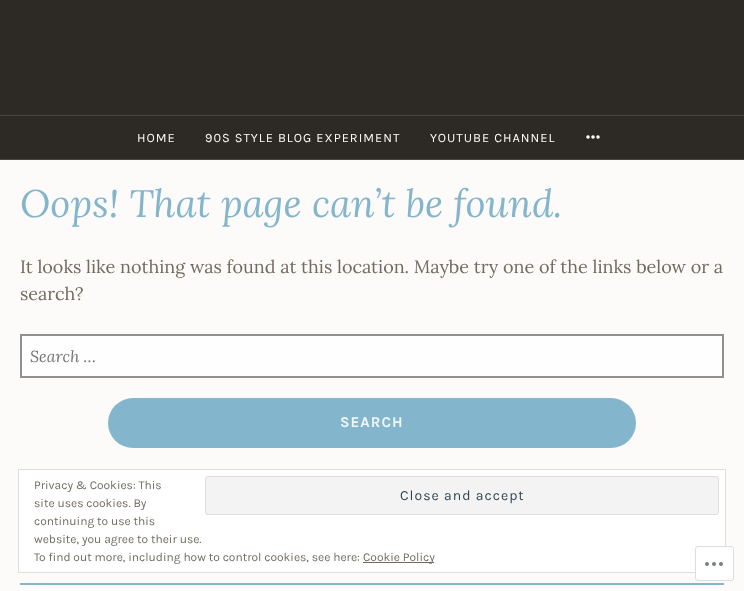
<!DOCTYPE html>
<meta charset="utf-8">
<style>body { margin: 0 } canvas { display: block }</style>
<canvas id="canvas" width="744" height="591"></canvas>
<img id="img1" src="images/1.png" hidden>
<img id="img2" src="images/2.png" hidden>
<script>
window.onload = function () {
    const canvas = document.getElementById('canvas');
    const context = canvas.getContext('2d');
    context.miterLimit = 4;
    context.fontKerning = 'normal';

    context.fillStyle = 'rgb(252, 251, 250)';
    context.fillRect(0, 0, 744, 591);
    context.fillStyle = 'rgb(45, 42, 38)';
    context.fillRect(0, 0, 744, 159);
    context.fillStyle = 'rgb(73, 68, 61)';
    context.fillRect(0, 115, 744, 1);
    context.fillRect(0, 159, 744, 1);
    context.drawImage(document.getElementById('img1'), 586, 135, 14, 4);
    context.fillStyle = 'rgb(254, 254, 254)';
    context.beginPath();
    context.rect(21, 335, 702, 42);
    context.fill();
    context.strokeStyle = 'rgb(144, 144, 144)';
    context.lineWidth = 2;
    context.stroke();
    context.fillStyle = 'rgb(131, 182, 204)';
    context.beginPath();
    context.roundRect(108, 398, 528, 50, 25);
    context.fill();
    context.fillRect(20, 583, 704, 2);
    context.fillStyle = 'rgb(255, 255, 255)';
    context.beginPath();
    context.rect(18.5, 469.5, 707, 103);
    context.fill();
    context.strokeStyle = 'rgb(222, 222, 222)';
    context.lineWidth = 1;
    context.stroke();
    context.fillStyle = 'rgb(243, 243, 243)';
    context.beginPath();
    context.roundRect(205.5, 476.5, 513, 38, 2.5);
    context.fill();
    context.stroke();
    context.fillStyle = 'rgb(114, 107, 96)';
    context.fillRect(363, 562, 71, 1);
    context.fillStyle = 'rgba(255, 255, 255, 0.98)';
    context.beginPath();
    context.roundRect(695.5, 546.5, 38, 34, 2.5);
    context.fill();
    context.strokeStyle = 'rgb(221, 221, 223)';
    context.stroke();
    context.drawImage(document.getElementById('img2'), 705, 562, 18, 4);
    context.letterSpacing = '1px';
    context.font = '12.75px Karla';
    context.fillStyle = 'rgb(252, 251, 249)';
    context.fillText('HOME', 137, 142);
    context.fillText('90S STYLE BLOG EXPERIMENT', 205, 142);
    context.fillText('YOUTUBE CHANNEL', 430, 142);
    context.letterSpacing = '0px';
    context.font = 'italic 38.4px Lora';
    context.fillStyle = 'rgb(131, 182, 204)';
    context.fillText('Oops! That page can’t be found.', 20, 217);
    context.font = '18px Lora';
    context.fillStyle = 'rgb(114, 107, 96)';
    context.fillText('It looks like nothing was found at this location. Maybe try one of the links below or a', 20, 273);
    context.fillText('search?', 20, 300);
    context.font = 'italic 16px Lora';
    context.fillStyle = 'rgb(117, 117, 117)';
    context.fillText('Search …', 30, 362);
    context.letterSpacing = '1px';
    context.font = 'bold 15px Karla';
    context.fillStyle = 'rgb(239, 246, 249)';
    context.fillText('SEARCH', 340, 427);
    context.letterSpacing = '0px';
    context.font = '12px Karla';
    context.fillStyle = 'rgb(114, 107, 96)';
    context.fillText('Privacy & Cookies: This', 34, 489);
    context.fillText('site uses cookies. By', 34, 507);
    context.letterSpacing = '1px';
    context.font = '14px Karla';
    context.fillStyle = 'rgb(46, 68, 83)';
    context.fillText('Close and accept', 400, 500);
    context.letterSpacing = '0px';
    context.font = '12px Karla';
    context.fillStyle = 'rgb(114, 107, 96)';
    context.fillText('continuing to use this', 34, 525);
    context.fillText('website, you agree to their use.', 34, 543);
    context.fillText('To find out more, including how to control cookies, see here:', 34, 561);
    context.fillText('Cookie Policy', 363, 561);
};
</script>
